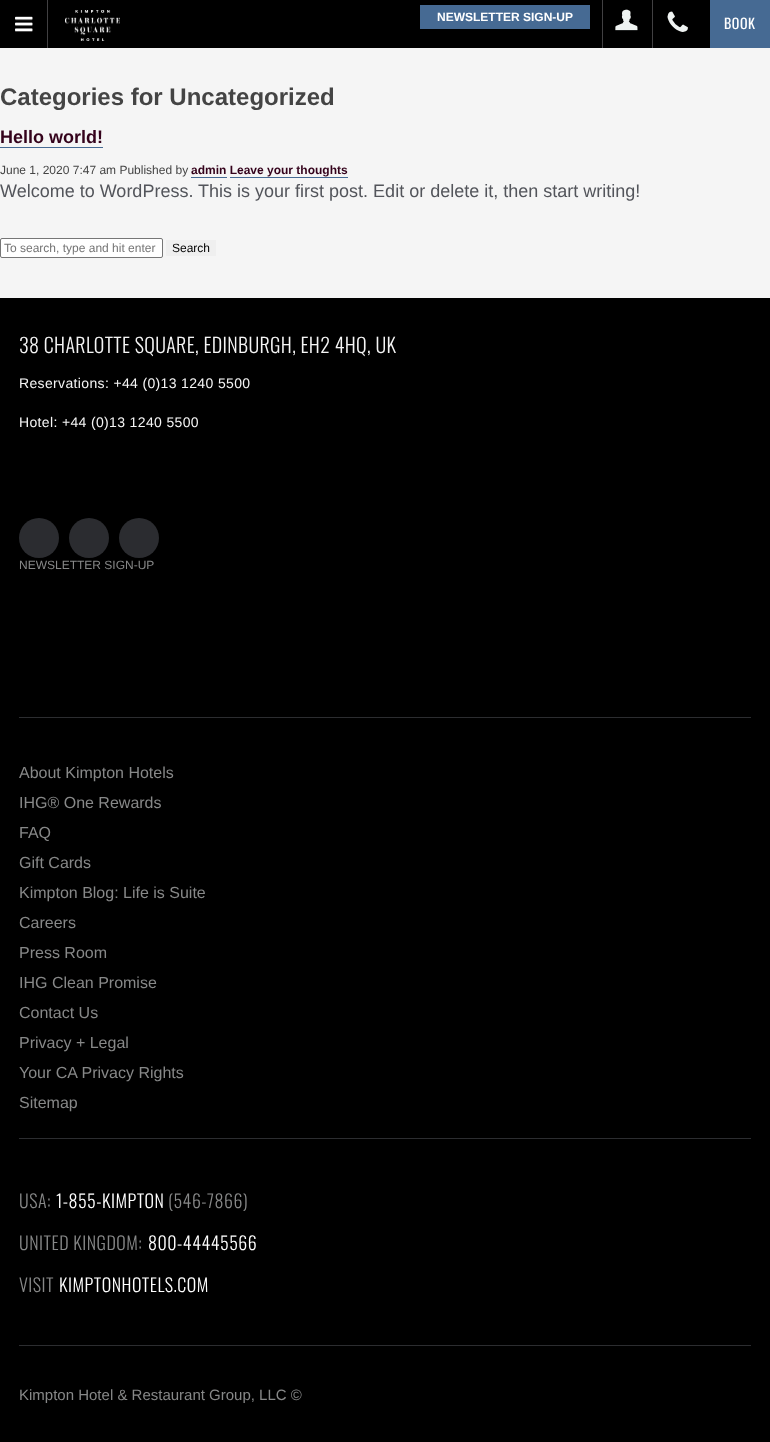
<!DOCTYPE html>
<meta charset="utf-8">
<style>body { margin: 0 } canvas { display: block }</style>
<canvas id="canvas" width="770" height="1442"></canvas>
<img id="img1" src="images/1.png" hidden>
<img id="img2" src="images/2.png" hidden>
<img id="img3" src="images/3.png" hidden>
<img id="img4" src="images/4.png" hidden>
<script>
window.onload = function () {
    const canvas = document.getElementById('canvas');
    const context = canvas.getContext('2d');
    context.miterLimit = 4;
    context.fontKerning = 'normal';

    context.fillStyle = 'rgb(245, 245, 245)';
    context.fillRect(0, 0, 770, 1442);
    context.fillStyle = 'rgb(0, 0, 0)';
    context.fillRect(0, 0, 710, 48);
    context.fillStyle = 'rgb(65, 64, 66)';
    context.fillRect(47, 0, 1, 48);
    context.drawImage(document.getElementById('img1'), 15, 16, 18, 16);
    context.drawImage(document.getElementById('img2'), 65, 10, 55, 31);
    context.fillStyle = 'rgb(70, 106, 147)';
    context.fillRect(420, 5, 170, 24);
    context.fillStyle = 'rgb(65, 64, 66)';
    context.fillRect(602, 0, 1, 48);
    context.drawImage(document.getElementById('img3'), 615, 9, 23, 22);
    context.fillRect(652, 0, 1, 48);
    context.drawImage(document.getElementById('img4'), 667, 11, 21, 21);
    context.fillStyle = 'rgb(70, 106, 147)';
    context.fillRect(710, 0, 60, 48);
    context.fillRect(0, 147, 103, 1);
    context.fillRect(191, 177, 36, 1);
    context.fillRect(230, 177, 118, 1);
    context.fillStyle = 'rgb(255, 255, 255)';
    context.beginPath();
    context.roundRect(0.5, 238.5, 162, 19, 1.5);
    context.fill();
    context.strokeStyle = 'rgb(118, 118, 118)';
    context.stroke();
    context.fillStyle = 'rgb(239, 239, 239)';
    context.fillRect(166, 240, 50, 16);
    context.fillStyle = 'rgb(0, 0, 0)';
    context.fillRect(0, 298, 770, 1144);
    context.fillStyle = 'rgb(44, 45, 48)';
    context.fillRect(19, 717, 732, 1);
    context.fillStyle = 'rgb(43, 44, 48)';
    context.beginPath();
    context.arc(39, 538, 20, 0, 2 * Math.PI);
    context.fill();
    context.beginPath();
    context.arc(89, 538, 20, 0, 2 * Math.PI);
    context.fill();
    context.beginPath();
    context.arc(139, 538, 20, 0, 2 * Math.PI);
    context.fill();
    context.fillStyle = 'rgb(44, 45, 48)';
    context.fillRect(19, 1345, 732, 1);
    context.fillRect(19, 1138, 732, 1);
    context.font = 'bold 12px Liberation Sans';
    context.fillStyle = 'rgb(255, 255, 255)';
    context.fillText('NEWSLETTER SIGN-UP', 437, 21);
    context.letterSpacing = '0.5px';
    context.font = '14px Oswald';
    context.fillText('BOOK', 724, 29);
    context.letterSpacing = '0px';
    context.font = 'bold 24px Liberation Sans';
    context.fillStyle = 'rgb(68, 68, 68)';
    context.fillText('Categories for Uncategorized', 0, 105);
    context.font = 'bold 18px Liberation Sans';
    context.fillStyle = 'rgb(52, 2, 27)';
    context.fillText('Hello world!', 0, 143);
    context.font = '12px Liberation Sans';
    context.fillStyle = 'rgb(68, 68, 68)';
    context.fillText('June 1, 2020 7:47 am Published by', 0, 174);
    context.font = 'bold 12px Liberation Sans';
    context.fillStyle = 'rgb(52, 2, 27)';
    context.fillText('admin Leave your thoughts', 191, 174);
    context.font = '18px Liberation Sans';
    context.fillStyle = 'rgb(83, 85, 91)';
    context.fillText('Welcome to WordPress. This is your first post. Edit or delete it, then start writing!', 0, 197);
    context.font = '12px Liberation Sans';
    context.fillStyle = 'rgb(117, 117, 117)';
    context.fillText('To search, type and hit enter', 4, 252);
    context.fillStyle = 'rgb(0, 0, 0)';
    context.fillText('Search', 172, 252);
    context.letterSpacing = '0.35px';
    context.font = '300 20px Oswald';
    context.fillStyle = 'rgb(245, 245, 245)';
    context.fillText('38 CHARLOTTE SQUARE, EDINBURGH, EH2 4HQ, UK', 19, 353);
    context.font = '14px Liberation Sans';
    context.fillText('Reservations: +44 (0)13 1240 5500', 19, 388);
    context.fillText('Hotel: +44 (0)13 1240 5500', 19, 427);
    context.letterSpacing = '0px';
    context.font = '12px Liberation Sans';
    context.fillStyle = 'rgb(135, 136, 136)';
    context.fillText('NEWSLETTER SIGN-UP', 19, 569);
    context.font = '16px Liberation Sans';
    context.fillText('About Kimpton Hotels', 19, 778);
    context.fillText('IHG® One Rewards', 19, 808);
    context.fillText('FAQ', 19, 838);
    context.fillText('Gift Cards', 19, 868);
    context.fillText('Kimpton Blog: Life is Suite', 19, 898);
    context.fillText('Careers', 19, 928);
    context.fillText('Press Room', 19, 958);
    context.fillText('IHG Clean Promise', 19, 988);
    context.fillText('Contact Us', 19, 1018);
    context.fillText('Privacy + Legal', 19, 1048);
    context.fillText('Your CA Privacy Rights', 19, 1078);
    context.fillText('Sitemap', 19, 1108);
    context.letterSpacing = '0.5px';
    context.font = '300 18px Oswald';
    context.fillText('USA:', 19, 1208);
    context.fillStyle = 'rgb(255, 255, 255)';
    context.fillText('1-855-KIMPTON', 56, 1208);
    context.fillStyle = 'rgb(135, 136, 136)';
    context.fillText('(546-7866)', 168, 1208);
    context.fillText('UNITED KINGDOM:', 19, 1250);
    context.fillStyle = 'rgb(255, 255, 255)';
    context.fillText('800-44445566', 148, 1250);
    context.fillStyle = 'rgb(135, 136, 136)';
    context.fillText('VISIT', 19, 1292);
    context.fillStyle = 'rgb(255, 255, 255)';
    context.fillText('KIMPTONHOTELS.COM', 59, 1292);
    context.letterSpacing = '0px';
    context.font = '15px Liberation Sans';
    context.fillStyle = 'rgb(135, 136, 136)';
    context.fillText('Kimpton Hotel & Restaurant Group, LLC ©', 19, 1400);
};
</script>
